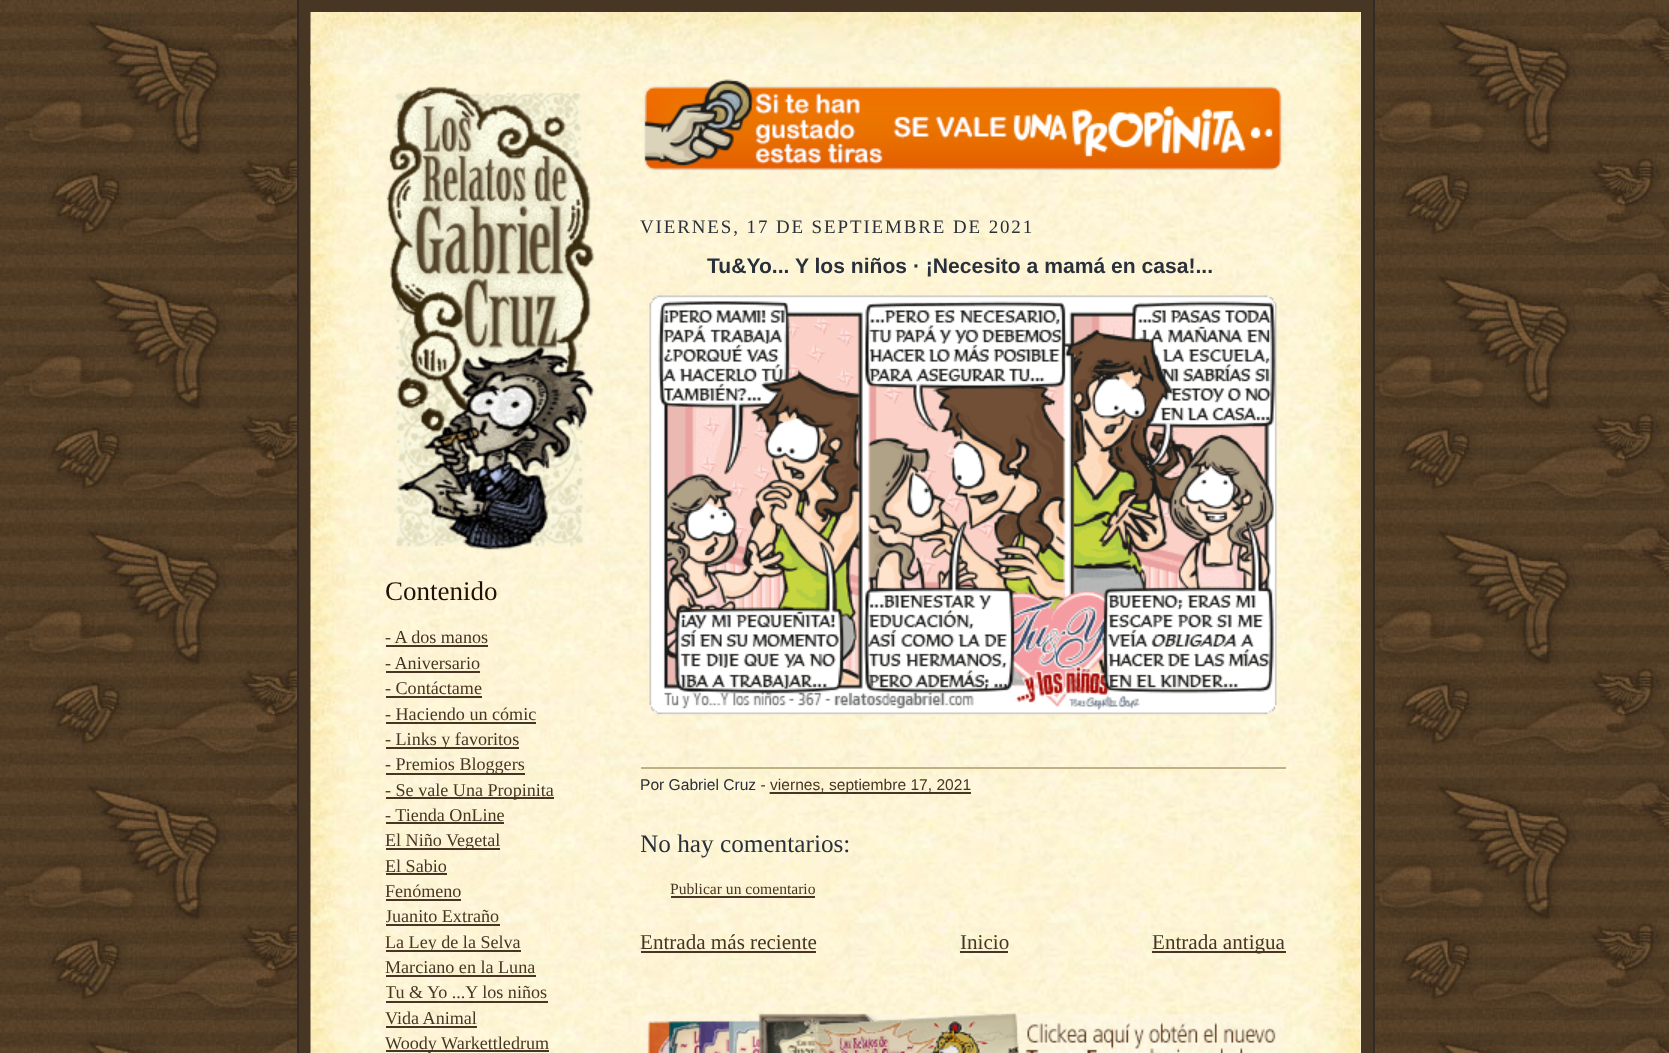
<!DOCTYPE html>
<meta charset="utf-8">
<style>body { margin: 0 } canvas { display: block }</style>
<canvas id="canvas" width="1669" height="1053"></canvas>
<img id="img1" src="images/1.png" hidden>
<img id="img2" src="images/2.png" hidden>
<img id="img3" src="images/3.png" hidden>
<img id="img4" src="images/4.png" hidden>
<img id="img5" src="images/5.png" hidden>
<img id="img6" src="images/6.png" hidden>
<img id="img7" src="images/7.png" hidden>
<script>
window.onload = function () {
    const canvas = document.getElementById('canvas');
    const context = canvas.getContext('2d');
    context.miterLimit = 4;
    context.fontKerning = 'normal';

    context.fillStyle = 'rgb(255, 255, 255)';
    context.fillRect(0, 0, 1669, 1053);
    context.drawImage(document.getElementById('img1'), 0, 0, 1669, 1053);
    context.fillStyle = 'rgb(71, 54, 36)';
    context.fillRect(299, 0, 1074, 1053);
    context.fillStyle = 'rgb(51, 42, 36)';
    context.fillRect(1373, 0, 2, 1053);
    context.fillRect(297, 0, 2, 1053);
    context.fillStyle = 'rgb(255, 243, 219)';
    context.fillRect(1360, 12, 1, 53);
    context.drawImage(document.getElementById('img2'), 310, 12, 1051, 74);
    context.fillRect(1360, 65, 1, 988);
    context.drawImage(document.getElementById('img3'), 310, 64, 1051, 989);
    context.drawImage(document.getElementById('img4'), 386, 86, 209, 465);
    context.fillStyle = 'rgb(71, 54, 36)';
    context.fillRect(386, 645, 102, 2);
    context.fillRect(386, 671, 94, 2);
    context.fillRect(386, 696, 96, 2);
    context.fillRect(386, 722, 150, 2);
    context.fillRect(386, 747, 133, 2);
    context.fillRect(386, 773, 139, 2);
    context.fillRect(386, 797, 168, 2);
    context.fillRect(386, 822, 118, 2);
    context.fillRect(386, 848, 114, 2);
    context.fillRect(386, 873, 61, 2);
    context.fillRect(386, 899, 75, 2);
    context.fillRect(386, 924, 114, 2);
    context.fillRect(386, 950, 135, 2);
    context.fillRect(386, 975, 150, 2);
    context.fillRect(386, 1001, 162, 2);
    context.fillRect(386, 1026, 91, 2);
    context.fillRect(386, 1050, 163, 2);
    context.drawImage(document.getElementById('img5'), 643, 79, 640, 92);
    context.drawImage(document.getElementById('img6'), 649, 295, 628, 420);
    context.fillStyle = 'rgb(191, 177, 134)';
    context.fillRect(641, 767, 645, 2);
    context.beginPath();
    context.moveTo(769.5, 793);
    context.lineTo(970, 793);
    context.strokeStyle = 'rgb(71, 54, 36)';
    context.lineWidth = 1.5;
    context.setLineDash([1.5, 1.5]);
    context.stroke();
    context.fillStyle = 'rgb(71, 54, 36)';
    context.fillRect(770, 792, 201, 2);
    context.fillRect(671, 896, 144, 2);
    context.fillRect(641, 951, 175, 2);
    context.fillRect(960, 951, 48, 2);
    context.fillRect(1152, 951, 134, 2);
    context.drawImage(document.getElementById('img7'), 642, 1012, 642, 41);
    context.font = '27px Liberation Serif';
    context.fillStyle = 'rgb(33, 17, 4)';
    context.fillText('Contenido', 385, 600);
    context.font = '18.1px Liberation Serif';
    context.fillStyle = 'rgb(71, 54, 36)';
    context.fillText('- A dos manos', 385, 643);
    context.fillText('- Aniversario', 385, 669);
    context.fillText('- Contáctame', 385, 694);
    context.fillText('- Haciendo un cómic', 385, 720);
    context.fillText('- Links y favoritos', 385, 745);
    context.fillText('- Premios Bloggers', 385, 770);
    context.fillText('- Se vale Una Propinita', 385, 796);
    context.fillText('- Tienda OnLine', 385, 821);
    context.fillText('El Niño Vegetal', 385, 846);
    context.fillText('El Sabio', 385, 872);
    context.fillText('Fenómeno', 385, 897);
    context.save();
    context.beginPath();
    context.rect(386, 65, 225, 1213);
    context.clip();
    context.fillText('Juanito Extraño', 385, 922);
    context.restore();
    context.fillText('La Ley de la Selva', 385, 948);
    context.fillText('Marciano en la Luna', 385, 973);
    context.save();
    context.beginPath();
    context.rect(386, 65, 225, 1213);
    context.clip();
    context.fillText('Tu & Yo ...Y los niños', 385, 998);
    context.restore();
    context.fillText('Vida Animal', 385, 1024);
    context.fillText('Woody Warkettledrum', 385, 1049);
    context.letterSpacing = '1.9px';
    context.font = '18.95px Liberation Serif';
    context.fillStyle = 'rgb(41, 48, 59)';
    context.fillText('VIERNES, 17 DE SEPTIEMBRE DE 2021', 640, 233);
    context.letterSpacing = '0px';
    context.font = 'bold 21.1px Liberation Sans';
    context.fillText('Tu&Yo... Y los niños · ¡Necesito a mamá en casa!...', 707, 273);
    context.font = '15.6px Liberation Sans';
    context.fillText('Por Gabriel Cruz -', 640, 790);
    context.fillStyle = 'rgb(71, 54, 36)';
    context.fillText('viernes, septiembre 17, 2021', 770, 790);
    context.save();
    context.beginPath();
    context.rect(641, 65, 645, 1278);
    context.clip();
    context.font = '25.25px Liberation Serif';
    context.fillStyle = 'rgb(41, 48, 59)';
    context.fillText('No hay comentarios:', 640, 852);
    context.restore();
    context.font = '15.6px Liberation Serif';
    context.fillText('Publicar un comentario', 670, 894);
    context.font = '21.1px Liberation Serif';
    context.fillText('Entrada más reciente', 640, 949);
    context.fillText('Inicio', 960, 949);
    context.fillText('Entrada antigua', 1152, 949);
};
</script>
